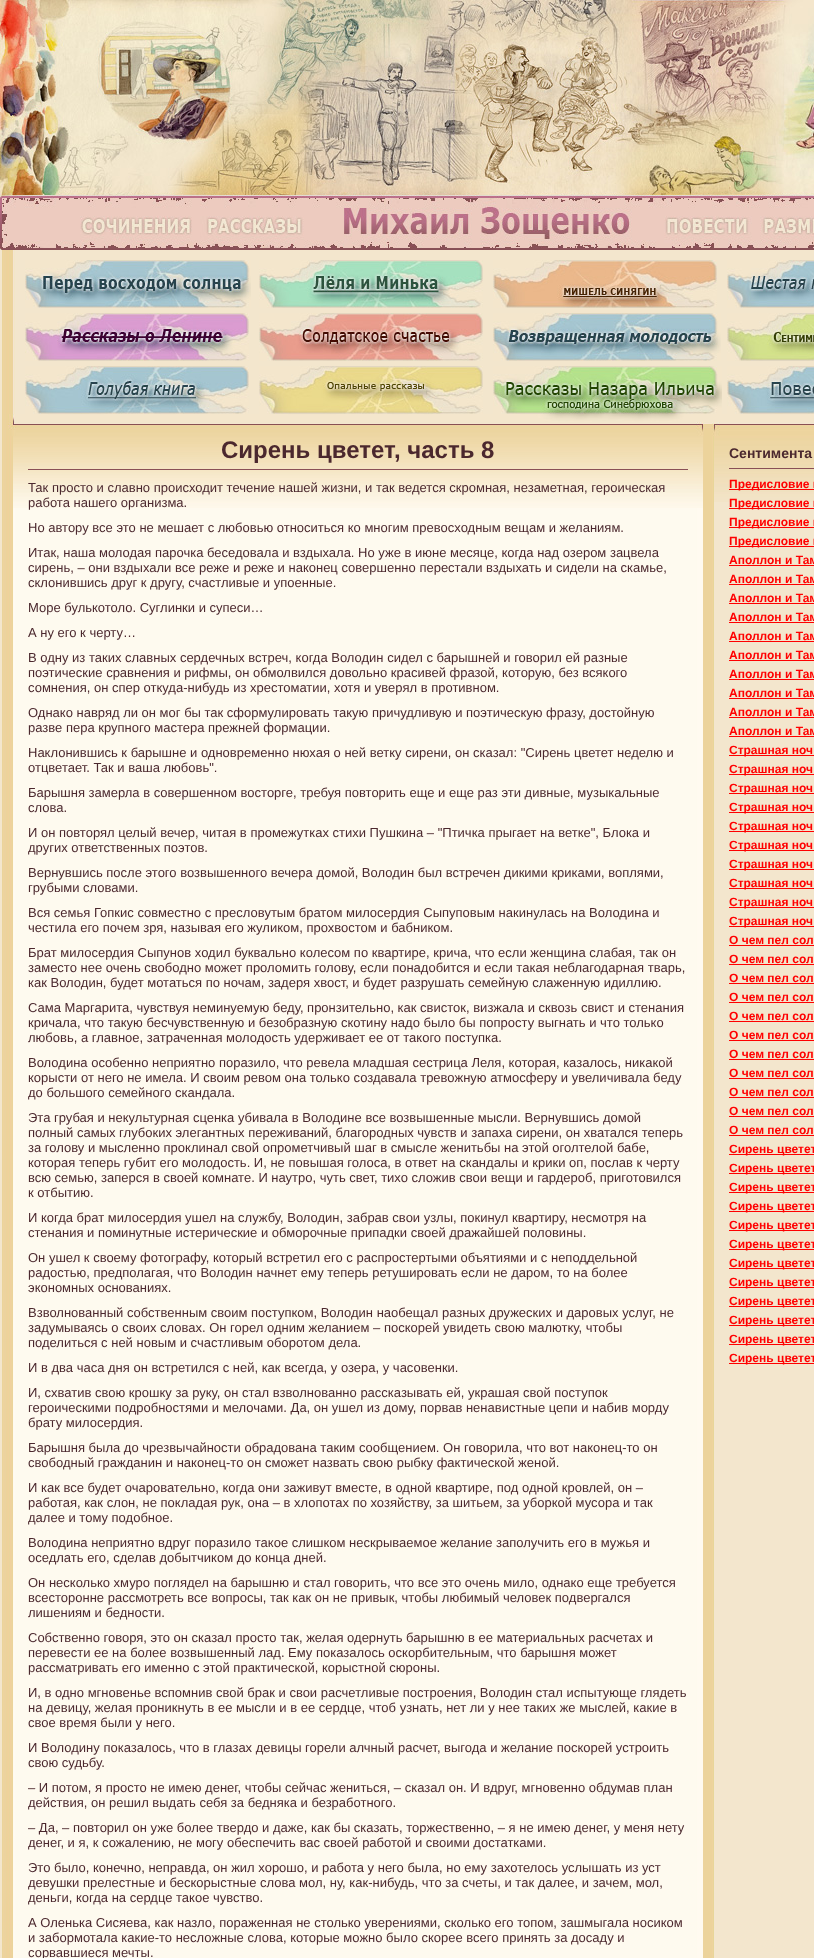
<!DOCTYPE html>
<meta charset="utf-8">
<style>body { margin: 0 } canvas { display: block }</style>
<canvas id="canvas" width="814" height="1958"></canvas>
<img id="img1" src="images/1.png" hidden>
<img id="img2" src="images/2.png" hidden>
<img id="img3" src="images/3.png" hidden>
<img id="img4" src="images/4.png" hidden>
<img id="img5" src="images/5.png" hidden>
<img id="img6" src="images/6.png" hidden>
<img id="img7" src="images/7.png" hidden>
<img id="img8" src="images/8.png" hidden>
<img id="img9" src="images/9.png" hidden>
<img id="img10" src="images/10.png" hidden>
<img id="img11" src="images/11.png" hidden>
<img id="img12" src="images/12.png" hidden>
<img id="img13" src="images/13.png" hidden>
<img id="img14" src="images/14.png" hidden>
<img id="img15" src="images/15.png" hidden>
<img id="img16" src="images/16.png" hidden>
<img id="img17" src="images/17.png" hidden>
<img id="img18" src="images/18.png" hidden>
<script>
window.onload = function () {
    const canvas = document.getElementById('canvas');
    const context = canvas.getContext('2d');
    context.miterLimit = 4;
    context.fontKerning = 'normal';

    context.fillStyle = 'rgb(243, 230, 205)';
    context.fillRect(0, 0, 814, 1958);
    context.drawImage(document.getElementById('img1'), 2, 250, 13, 1708);
    context.drawImage(document.getElementById('img2'), 0, 0, 814, 250);
    context.drawImage(document.getElementById('img3'), 25, 260, 226, 48);
    context.drawImage(document.getElementById('img4'), 259, 260, 224, 48);
    context.drawImage(document.getElementById('img5'), 493, 260, 224, 48);
    context.drawImage(document.getElementById('img6'), 727, 260, 87, 48);
    context.drawImage(document.getElementById('img7'), 25, 313, 224, 48);
    context.drawImage(document.getElementById('img8'), 259, 313, 224, 48);
    context.drawImage(document.getElementById('img9'), 493, 313, 228, 48);
    context.drawImage(document.getElementById('img10'), 727, 313, 87, 48);
    context.drawImage(document.getElementById('img11'), 25, 366, 224, 48);
    context.drawImage(document.getElementById('img12'), 259, 366, 224, 48);
    context.drawImage(document.getElementById('img13'), 493, 366, 229, 48);
    context.drawImage(document.getElementById('img14'), 727, 366, 87, 48);
    context.drawImage(document.getElementById('img15'), 8, 414, 806, 22);
    context.drawImage(document.getElementById('img16'), 10, 436, 704, 1522);
    context.fillStyle = 'rgb(255, 250, 240)';
    context.fillRect(697, 508, 5, 1450);
    context.drawImage(document.getElementById('img17'), 13, 436, 690, 72);
    context.fillStyle = 'rgb(137, 79, 86)';
    context.fillRect(28, 469, 660, 1);
    context.drawImage(document.getElementById('img18'), 714, 436, 100, 66);
    context.fillRect(729, 468, 85, 1);
    context.fillStyle = 'rgb(255, 0, 0)';
    context.fillRect(729, 489, 85, 1);
    context.fillRect(729, 508, 85, 1);
    context.fillRect(729, 527, 85, 1);
    context.fillRect(729, 546, 85, 1);
    context.fillRect(729, 565, 85, 1);
    context.fillRect(729, 584, 85, 1);
    context.fillRect(729, 603, 85, 1);
    context.fillRect(729, 622, 85, 1);
    context.fillRect(729, 641, 85, 1);
    context.fillRect(729, 660, 85, 1);
    context.fillRect(729, 679, 85, 1);
    context.fillRect(729, 698, 85, 1);
    context.fillRect(729, 717, 85, 1);
    context.fillRect(729, 736, 85, 1);
    context.fillRect(729, 755, 85, 1);
    context.fillRect(729, 774, 85, 1);
    context.fillRect(729, 793, 85, 1);
    context.fillRect(729, 812, 85, 1);
    context.fillRect(729, 831, 85, 1);
    context.fillRect(729, 850, 85, 1);
    context.fillRect(729, 869, 85, 1);
    context.fillRect(729, 888, 85, 1);
    context.fillRect(729, 907, 85, 1);
    context.fillRect(729, 926, 85, 1);
    context.fillRect(729, 945, 85, 1);
    context.fillRect(729, 964, 85, 1);
    context.fillRect(729, 983, 85, 1);
    context.fillRect(729, 1002, 85, 1);
    context.fillRect(729, 1021, 85, 1);
    context.fillRect(729, 1040, 85, 1);
    context.fillRect(729, 1059, 85, 1);
    context.fillRect(729, 1078, 85, 1);
    context.fillRect(729, 1097, 85, 1);
    context.fillRect(729, 1116, 85, 1);
    context.fillRect(729, 1135, 85, 1);
    context.fillRect(729, 1154, 85, 1);
    context.fillRect(729, 1173, 85, 1);
    context.fillRect(729, 1192, 85, 1);
    context.fillRect(729, 1211, 85, 1);
    context.fillRect(729, 1230, 85, 1);
    context.fillRect(729, 1249, 85, 1);
    context.fillRect(729, 1268, 85, 1);
    context.fillRect(729, 1287, 85, 1);
    context.fillRect(729, 1306, 85, 1);
    context.fillRect(729, 1325, 85, 1);
    context.fillRect(729, 1344, 85, 1);
    context.fillRect(729, 1363, 85, 1);
    context.font = 'bold 24px Liberation Sans';
    context.fillStyle = 'rgb(75, 40, 46)';
    context.fillText('Сирень цветет, часть 8', 221, 458);
    context.font = '13px Liberation Sans';
    context.fillText('Так просто и славно происходит течение нашей жизни, и так ведется скромная, незаметная, героическая', 28, 492);
    context.fillText('работа нашего организма.', 28, 507);
    context.fillText('Но автору все это не мешает с любовью относиться ко многим превосходным вещам и желаниям.', 28, 532);
    context.fillText('Итак, наша молодая парочка беседовала и вздыхала. Но уже в июне месяце, когда над озером зацвела', 28, 557);
    context.fillText('сирень, – они вздыхали все реже и реже и наконец совершенно перестали вздыхать и сидели на скамье,', 28, 572);
    context.fillText('склонившись друг к другу, счастливые и упоенные.', 28, 587);
    context.fillText('Море булькотоло. Суглинки и супеси…', 28, 612);
    context.fillText('А ну его к черту…', 28, 637);
    context.fillText('В одну из таких славных сердечных встреч, когда Володин сидел с барышней и говорил ей разные', 28, 662);
    context.fillText('поэтические сравнения и рифмы, он обмолвился довольно красивей фразой, которую, без всякого', 28, 677);
    context.fillText('сомнения, он спер откуда-нибудь из хрестоматии, хотя и уверял в противном.', 28, 692);
    context.fillText('Однако навряд ли он мог бы так сформулировать такую причудливую и поэтическую фразу, достойную', 28, 717);
    context.fillText('разве пера крупного мастера прежней формации.', 28, 732);
    context.fillText('Наклонившись к барышне и одновременно нюхая о ней ветку сирени, он сказал: "Сирень цветет неделю и', 28, 757);
    context.fillText('отцветает. Так и ваша любовь".', 28, 772);
    context.fillText('Барышня замерла в совершенном восторге, требуя повторить еще и еще раз эти дивные, музыкальные', 28, 797);
    context.fillText('слова.', 28, 812);
    context.fillText('И он повторял целый вечер, читая в промежутках стихи Пушкина – "Птичка прыгает на ветке", Блока и', 28, 837);
    context.fillText('других ответственных поэтов.', 28, 852);
    context.fillText('Вернувшись после этого возвышенного вечера домой, Володин был встречен дикими криками, воплями,', 28, 877);
    context.fillText('грубыми словами.', 28, 892);
    context.fillText('Вся семья Гопкис совместно с пресловутым братом милосердия Сыпуповым накинулась на Володина и', 28, 917);
    context.fillText('честила его почем зря, называя его жуликом, прохвостом и бабником.', 28, 932);
    context.fillText('Брат милосердия Сыпунов ходил буквально колесом по квартире, крича, что если женщина слабая, так он', 28, 957);
    context.fillText('заместо нее очень свободно может проломить голову, если понадобится и если такая неблагодарная тварь,', 28, 972);
    context.fillText('как Володин, будет мотаться по ночам, задеря хвост, и будет разрушать семейную слаженную идиллию.', 28, 987);
    context.fillText('Сама Маргарита, чувствуя неминуемую беду, пронзительно, как свисток, визжала и сквозь свист и стенания', 28, 1012);
    context.fillText('кричала, что такую бесчувственную и безобразную скотину надо было бы попросту выгнать и что только', 28, 1027);
    context.fillText('любовь, а главное, затраченная молодость удерживает ее от такого поступка.', 28, 1042);
    context.fillText('Володина особенно неприятно поразило, что ревела младшая сестрица Леля, которая, казалось, никакой', 28, 1067);
    context.fillText('корысти от него не имела. И своим ревом она только создавала тревожную атмосферу и увеличивала беду', 28, 1082);
    context.fillText('до большого семейного скандала.', 28, 1097);
    context.fillText('Эта грубая и некультурная сценка убивала в Володине все возвышенные мысли. Вернувшись домой', 28, 1122);
    context.fillText('полный самых глубоких элегантных переживаний, благородных чувств и запаха сирени, он хватался теперь', 28, 1137);
    context.fillText('за голову и мысленно проклинал свой опрометчивый шаг в смысле женитьбы на этой оголтелой бабе,', 28, 1152);
    context.fillText('которая теперь губит его молодость. И, не повышая голоса, в ответ на скандалы и крики оп, послав к черту', 28, 1167);
    context.fillText('всю семью, заперся в своей комнате. И наутро, чуть свет, тихо сложив свои вещи и гардероб, приготовился', 28, 1182);
    context.fillText('к отбытию.', 28, 1197);
    context.fillText('И когда брат милосердия ушел на службу, Володин, забрав свои узлы, покинул квартиру, несмотря на', 28, 1222);
    context.fillText('стенания и поминутные истерические и обморочные припадки своей дражайшей половины.', 28, 1237);
    context.fillText('Он ушел к своему фотографу, который встретил его с распростертыми объятиями и с неподдельной', 28, 1262);
    context.fillText('радостью, предполагая, что Володин начнет ему теперь ретушировать если не даром, то на более', 28, 1277);
    context.fillText('экономных основаниях.', 28, 1292);
    context.fillText('Взволнованный собственным своим поступком, Володин наобещал разных дружеских и даровых услуг, не', 28, 1317);
    context.fillText('задумываясь о своих словах. Он горел одним желанием – поскорей увидеть свою малютку, чтобы', 28, 1332);
    context.fillText('поделиться с ней новым и счастливым оборотом дела.', 28, 1347);
    context.fillText('И в два часа дня он встретился с ней, как всегда, у озера, у часовенки.', 28, 1372);
    context.fillText('И, схватив свою крошку за руку, он стал взволнованно рассказывать ей, украшая свой поступок', 28, 1397);
    context.fillText('героическими подробностями и мелочами. Да, он ушел из дому, порвав ненавистные цепи и набив морду', 28, 1412);
    context.fillText('брату милосердия.', 28, 1427);
    context.fillText('Барышня была до чрезвычайности обрадована таким сообщением. Он говорила, что вот наконец-то он', 28, 1452);
    context.fillText('свободный гражданин и наконец-то он сможет назвать свою рыбку фактической женой.', 28, 1467);
    context.fillText('И как все будет очаровательно, когда они заживут вместе, в одной квартире, под одной кровлей, он –', 28, 1492);
    context.fillText('работая, как слон, не покладая рук, она – в хлопотах по хозяйству, за шитьем, за уборкой мусора и так', 28, 1507);
    context.fillText('далее и тому подобное.', 28, 1522);
    context.fillText('Володина неприятно вдруг поразило такое слишком нескрываемое желание заполучить его в мужья и', 28, 1547);
    context.fillText('оседлать его, сделав добытчиком до конца дней.', 28, 1562);
    context.fillText('Он несколько хмуро поглядел на барышню и стал говорить, что все это очень мило, однако еще требуется', 28, 1587);
    context.fillText('всесторонне рассмотреть все вопросы, так как он не привык, чтобы любимый человек подвергался', 28, 1602);
    context.fillText('лишениям и бедности.', 28, 1617);
    context.fillText('Собственно говоря, это он сказал просто так, желая одернуть барышню в ее материальных расчетах и', 28, 1642);
    context.fillText('перевести ее на более возвышенный лад. Ему показалось оскорбительным, что барышня может', 28, 1657);
    context.fillText('рассматривать его именно с этой практической, корыстной сюроны.', 28, 1672);
    context.fillText('И, в одно мгновенье вспомнив свой брак и свои расчетливые построения, Володин стал испытующе глядеть', 28, 1697);
    context.fillText('на девицу, желая проникнуть в ее мысли и в ее сердце, чтоб узнать, нет ли у нее таких же мыслей, какие в', 28, 1712);
    context.fillText('свое время были у него.', 28, 1727);
    context.fillText('И Володину показалось, что в глазах девицы горели алчный расчет, выгода и желание поскорей устроить', 28, 1752);
    context.fillText('свою судьбу.', 28, 1767);
    context.fillText('– И потом, я просто не имею денег, чтобы сейчас жениться, – сказал он. И вдруг, мгновенно обдумав план', 28, 1792);
    context.fillText('действия, он решил выдать себя за бедняка и безработного.', 28, 1807);
    context.fillText('– Да, – повторил он уже более твердо и даже, как бы сказать, торжественно, – я не имею денег, у меня нету', 28, 1832);
    context.fillText('денег, и я, к сожалению, не могу обеспечить вас своей работой и своими достатками.', 28, 1847);
    context.fillText('Это было, конечно, неправда, он жил хорошо, и работа у него была, но ему захотелось услышать из уст', 28, 1872);
    context.fillText('девушки прелестные и бескорыстные слова мол, ну, как-нибудь, что за счеты, и так далее, и зачем, мол,', 28, 1887);
    context.fillText('деньги, когда на сердце такое чувство.', 28, 1902);
    context.fillText('А Оленька Сисяева, как назло, пораженная не столько уверениями, сколько его топом, зашмыгала носиком', 28, 1927);
    context.fillText('и забормотала какие-то несложные слова, которые можно было скорее всего принять за досаду и', 28, 1942);
    context.fillText('сорвавшиеся мечты.', 28, 1957);
    context.font = 'bold 14px Liberation Sans';
    context.fillText('Сентимента', 729, 458);
    context.font = 'bold 12px Liberation Sans';
    context.fillStyle = 'rgb(255, 0, 0)';
    context.fillText('Предисловие к', 729, 488);
    context.fillText('Предисловие к', 729, 507);
    context.fillText('Предисловие к', 729, 526);
    context.fillText('Предисловие к', 729, 545);
    context.fillText('Аполлон и Там', 729, 564);
    context.fillText('Аполлон и Там', 729, 583);
    context.fillText('Аполлон и Там', 729, 602);
    context.fillText('Аполлон и Там', 729, 621);
    context.fillText('Аполлон и Там', 729, 640);
    context.fillText('Аполлон и Там', 729, 659);
    context.fillText('Аполлон и Там', 729, 678);
    context.fillText('Аполлон и Там', 729, 697);
    context.fillText('Аполлон и Там', 729, 716);
    context.fillText('Аполлон и Там', 729, 735);
    context.fillText('Страшная ноч', 729, 754);
    context.fillText('Страшная ноч', 729, 773);
    context.fillText('Страшная ноч', 729, 792);
    context.fillText('Страшная ноч', 729, 811);
    context.fillText('Страшная ноч', 729, 830);
    context.fillText('Страшная ноч', 729, 849);
    context.fillText('Страшная ноч', 729, 868);
    context.fillText('Страшная ноч', 729, 887);
    context.fillText('Страшная ноч', 729, 906);
    context.fillText('Страшная ноч', 729, 925);
    context.fillText('О чем пел сол', 729, 944);
    context.fillText('О чем пел сол', 729, 963);
    context.fillText('О чем пел сол', 729, 982);
    context.fillText('О чем пел сол', 729, 1001);
    context.fillText('О чем пел сол', 729, 1020);
    context.fillText('О чем пел сол', 729, 1039);
    context.fillText('О чем пел сол', 729, 1058);
    context.fillText('О чем пел сол', 729, 1077);
    context.fillText('О чем пел сол', 729, 1096);
    context.fillText('О чем пел сол', 729, 1115);
    context.fillText('О чем пел сол', 729, 1134);
    context.fillText('Сирень цветет', 729, 1153);
    context.fillText('Сирень цветет', 729, 1172);
    context.fillText('Сирень цветет', 729, 1191);
    context.fillText('Сирень цветет', 729, 1210);
    context.fillText('Сирень цветет', 729, 1229);
    context.fillText('Сирень цветет', 729, 1248);
    context.fillText('Сирень цветет', 729, 1267);
    context.fillText('Сирень цветет', 729, 1286);
    context.fillText('Сирень цветет', 729, 1305);
    context.fillText('Сирень цветет', 729, 1324);
    context.fillText('Сирень цветет', 729, 1343);
    context.fillText('Сирень цветет', 729, 1362);
};
</script>
